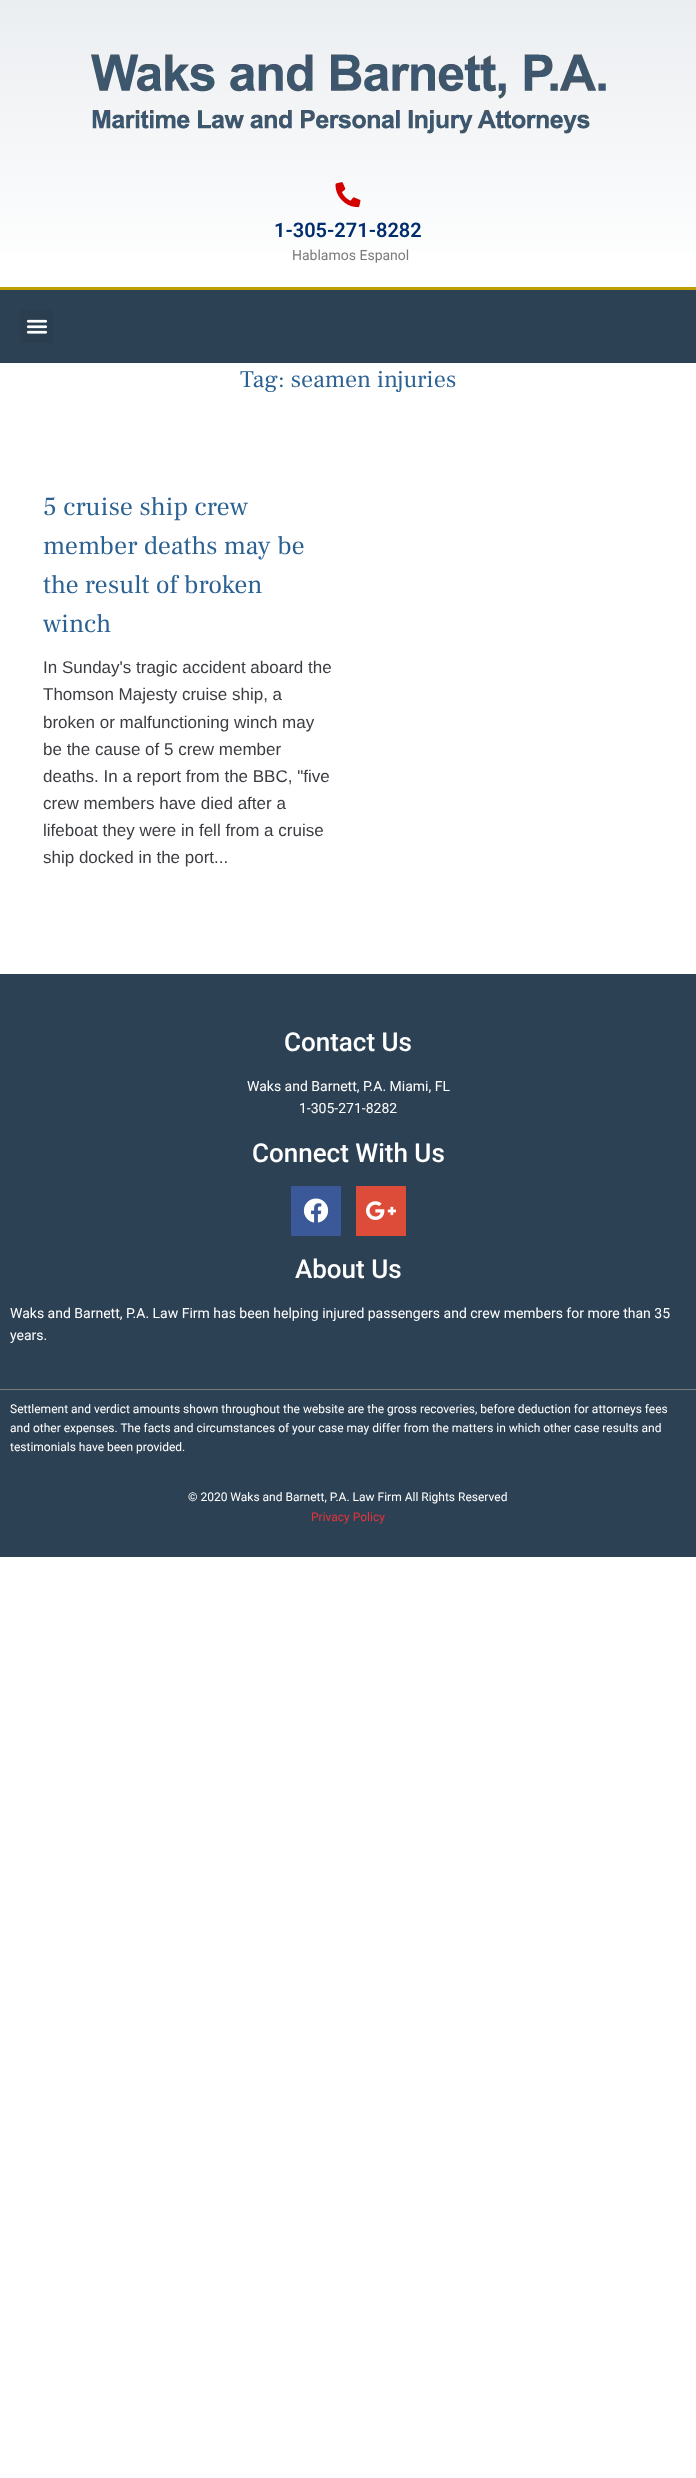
<!DOCTYPE html>
<meta charset="utf-8">
<style>body { margin: 0 } canvas { display: block }</style>
<canvas id="canvas" width="696" height="2478"></canvas>
<img id="img1" src="images/1.png" hidden>
<img id="img2" src="images/2.png" hidden>
<img id="img3" src="images/3.png" hidden>
<img id="img4" src="images/4.png" hidden>
<img id="img5" src="images/5.png" hidden>
<script>
window.onload = function () {
    const canvas = document.getElementById('canvas');
    const context = canvas.getContext('2d');
    context.miterLimit = 4;
    context.fontKerning = 'normal';
    let gradient;

    context.fillStyle = 'rgb(255, 255, 255)';
    context.fillRect(0, 0, 696, 2478);
    gradient = context.createLinearGradient(348, 0, 348, 287);
    gradient.addColorStop(0, 'rgb(235, 238, 241)');
    gradient.addColorStop(1, 'rgb(255, 255, 255)');
    context.fillStyle = gradient;
    context.fillRect(0, 0, 696, 251);
    context.drawImage(document.getElementById('img1'), 91, 54, 515, 80);
    context.drawImage(document.getElementById('img2'), 335, 182, 26, 26);
    context.fillStyle = 'rgb(44, 65, 84)';
    context.fillRect(0, 290, 696, 73);
    context.fillStyle = 'rgb(191, 159, 0)';
    context.fillRect(0, 287, 696, 3);
    context.fillStyle = 'rgb(42, 62, 80)';
    context.beginPath();
    context.roundRect(20, 310, 33, 33, 3);
    context.fill();
    context.drawImage(document.getElementById('img3'), 26, 319, 22, 15);
    context.fillStyle = 'rgb(44, 65, 84)';
    context.fillRect(0, 974, 696, 415);
    context.fillStyle = 'rgb(59, 89, 152)';
    context.fillRect(291, 1186, 50, 50);
    context.drawImage(document.getElementById('img4'), 303, 1198, 26, 25);
    context.fillStyle = 'rgb(221, 75, 57)';
    context.fillRect(356, 1186, 50, 50);
    context.drawImage(document.getElementById('img5'), 366, 1201, 30, 19);
    context.fillStyle = 'rgb(122, 122, 122)';
    context.fillRect(0, 1389, 696, 1);
    context.fillStyle = 'rgb(44, 65, 84)';
    context.fillRect(0, 1390, 696, 167);
    context.font = '600 20px Roboto';
    context.fillStyle = 'rgb(1, 44, 109)';
    context.fillText('1-305-271-8282', 274, 237);
    context.font = '14px Roboto';
    context.fillStyle = 'rgb(122, 122, 122)';
    context.fillText('Hablamos Espanol', 292, 260);
    context.font = '24px Frank Ruhl Libre';
    context.fillStyle = 'rgb(44, 98, 147)';
    context.fillText('Tag: seamen injuries', 240, 387);
    context.font = '26px Frank Ruhl Libre';
    context.fillText('5 cruise ship crew', 43, 515);
    context.fillText('member deaths may be', 43, 554);
    context.fillText('the result of broken', 43, 593);
    context.fillText('winch', 43, 632);
    context.font = '17px Liberation Sans';
    context.fillStyle = 'rgb(59, 61, 66)';
    context.fillText('In Sunday\'s tragic accident aboard the', 43, 673);
    context.fillText('Thomson Majesty cruise ship, a', 43, 700);
    context.fillText('broken or malfunctioning winch may', 43, 728);
    context.fillText('be the cause of 5 crew member', 43, 755);
    context.fillText('deaths. In a report from the BBC, "five', 43, 782);
    context.fillText('crew members have died after a', 43, 809);
    context.fillText('lifeboat they were in fell from a cruise', 43, 836);
    context.fillText('ship docked in the port...', 43, 863);
    context.font = '500 26px Roboto';
    context.fillStyle = 'rgb(255, 255, 255)';
    context.fillText('Contact Us', 284, 1051);
    context.font = '14px Roboto';
    context.fillText('Waks and Barnett, P.A. Miami, FL', 247, 1091);
    context.fillText('1-305-271-8282', 299, 1113);
    context.font = '500 26px Roboto';
    context.fillText('Connect With Us', 252, 1162);
    context.fillText('About Us', 295, 1278);
    context.font = '14px Roboto';
    context.fillText('Waks and Barnett, P.A. Law Firm has been helping injured passengers and crew members for more than 35', 10, 1318);
    context.fillText('years.', 10, 1340);
    context.font = '12px Roboto';
    context.fillText('Settlement and verdict amounts shown throughout the website are the gross recoveries, before deduction for attorneys fees', 10, 1413);
    context.fillText('and other expenses. The facts and circumstances of your case may differ from the matters in which other case results and', 10, 1432);
    context.fillText('testimonials have been provided.', 10, 1451);
    context.fillText('© 2020 Waks and Barnett, P.A. Law Firm All Rights Reserved', 188, 1501);
    context.fillStyle = 'rgb(227, 53, 58)';
    context.fillText('Privacy Policy', 311, 1521);
};
</script>
